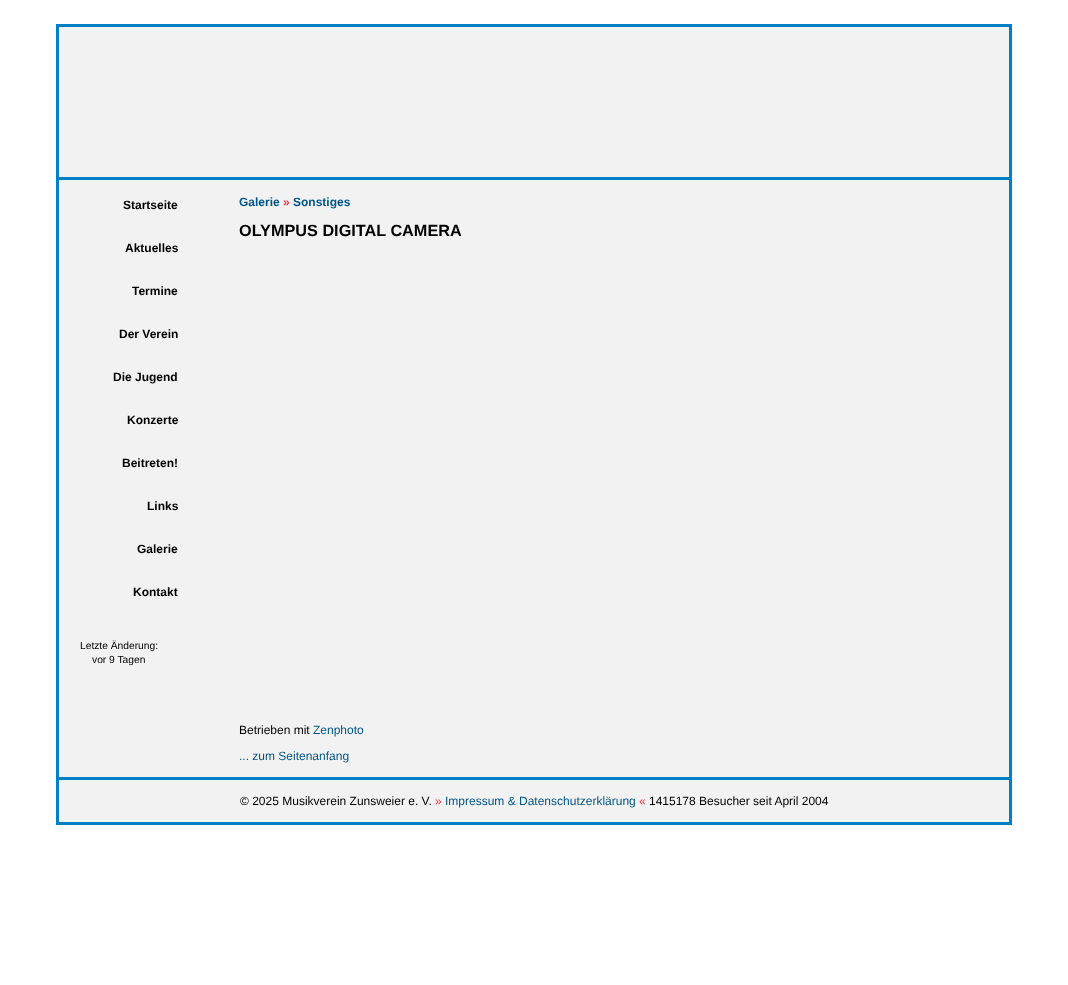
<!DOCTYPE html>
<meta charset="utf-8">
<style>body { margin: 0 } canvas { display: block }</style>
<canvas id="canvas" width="1068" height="985"></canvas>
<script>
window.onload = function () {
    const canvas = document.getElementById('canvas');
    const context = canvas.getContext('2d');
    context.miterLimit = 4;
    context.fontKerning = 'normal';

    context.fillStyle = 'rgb(255, 255, 255)';
    context.fillRect(0, 0, 1068, 985);
    context.fillStyle = 'rgb(242, 242, 242)';
    context.beginPath();
    context.rect(57.5, 25.5, 953, 798);
    context.fill();
    context.strokeStyle = 'rgb(0, 127, 196)';
    context.lineWidth = 3;
    context.stroke();
    context.fillStyle = 'rgb(0, 127, 196)';
    context.fillRect(59, 177, 950, 3);
    context.fillRect(59, 777, 950, 3);
    context.font = 'bold 12px Liberation Sans';
    context.fillStyle = 'rgb(0, 0, 0)';
    context.fillText('Startseite', 123, 209);
    context.fillText('Aktuelles', 125, 252);
    context.fillText('Termine', 132, 295);
    context.fillText('Der Verein', 119, 338);
    context.fillText('Die Jugend', 113, 381);
    context.fillText('Konzerte', 127, 424);
    context.fillText('Beitreten!', 122, 467);
    context.fillText('Links', 147, 510);
    context.fillText('Galerie', 137, 553);
    context.fillText('Kontakt', 133, 596);
    context.font = '10.25px Liberation Sans';
    context.fillText('Letzte Änderung:', 80, 649);
    context.fillText('vor 9 Tagen', 92, 663);
    context.font = 'bold 12px Liberation Sans';
    context.fillStyle = 'rgb(0, 85, 136)';
    context.fillText('Galerie', 239, 206);
    context.fillStyle = 'rgb(238, 51, 62)';
    context.fillText('»', 283, 206);
    context.fillStyle = 'rgb(0, 85, 136)';
    context.fillText('Sonstiges', 293, 206);
    context.font = 'bold 16.25px Liberation Sans';
    context.fillStyle = 'rgb(0, 0, 0)';
    context.fillText('OLYMPUS DIGITAL CAMERA', 239, 236);
    context.font = '12px Liberation Sans';
    context.fillText('Betrieben mit', 239, 734);
    context.fillStyle = 'rgb(0, 85, 136)';
    context.fillText('Zenphoto', 313, 734);
    context.fillText('... zum Seitenanfang', 239, 760);
    context.fillStyle = 'rgb(0, 0, 0)';
    context.fillText('© 2025 Musikverein Zunsweier e. V.', 240, 805);
    context.fillStyle = 'rgb(238, 51, 62)';
    context.fillText('»', 435, 805);
    context.fillStyle = 'rgb(0, 85, 136)';
    context.fillText('Impressum & Datenschutzerklärung', 445, 805);
    context.fillStyle = 'rgb(238, 51, 62)';
    context.fillText('«', 639, 805);
    context.fillStyle = 'rgb(0, 0, 0)';
    context.fillText('1415178 Besucher seit April 2004', 649, 805);
};
</script>
